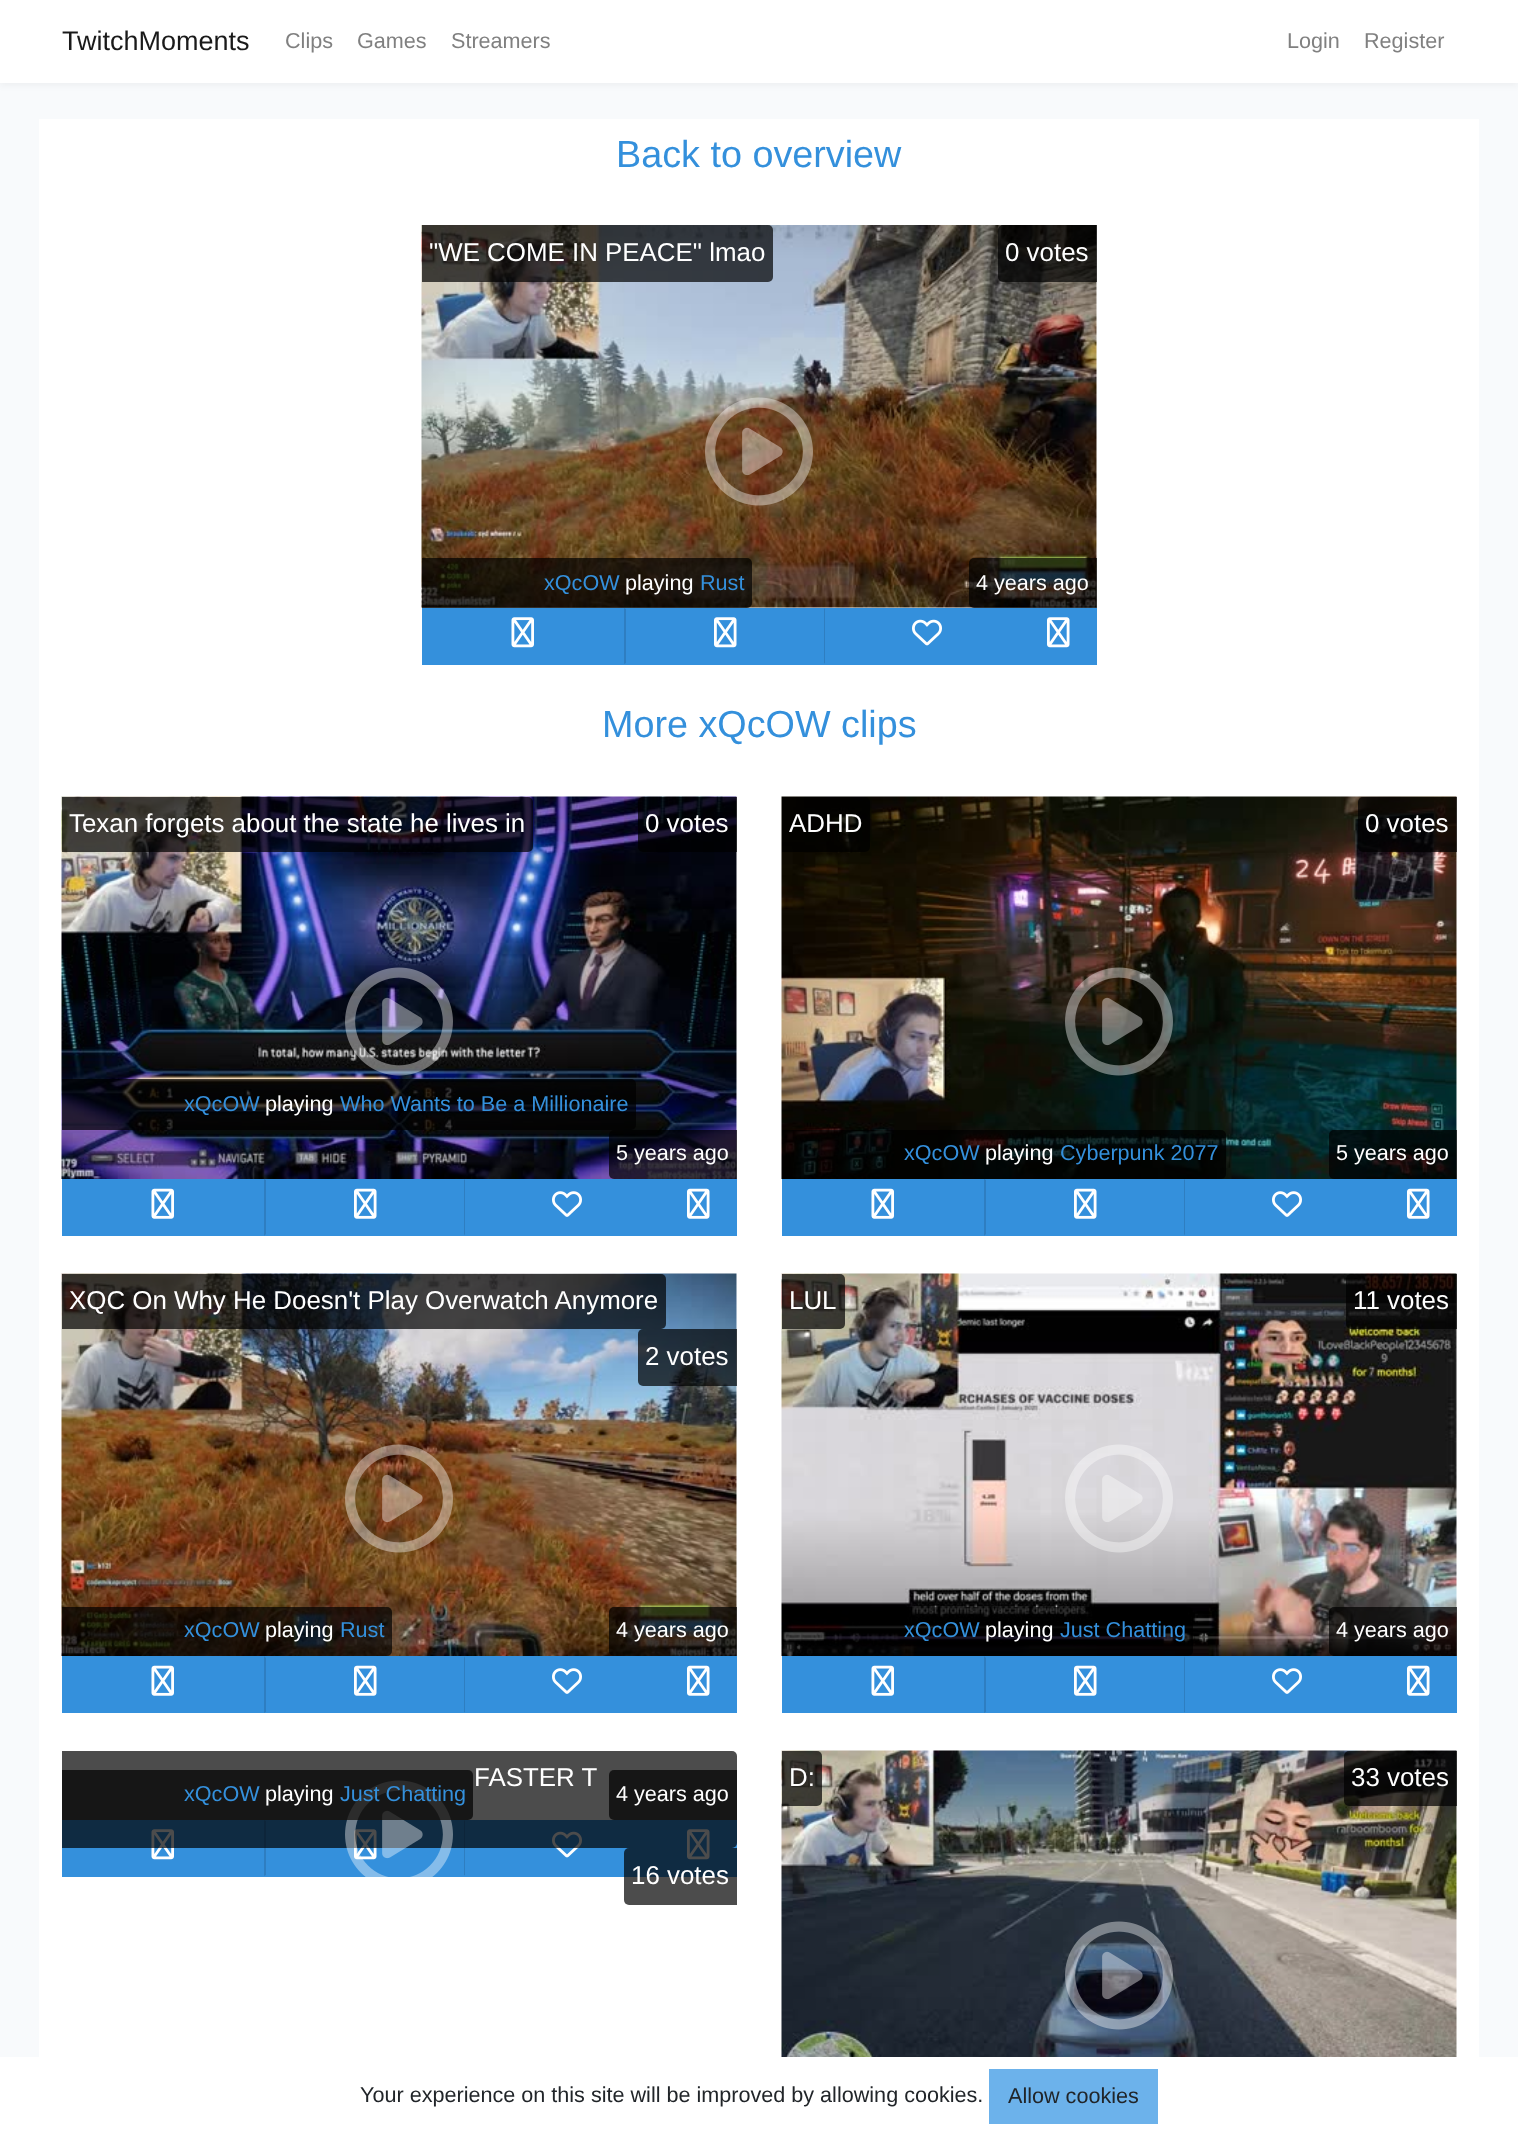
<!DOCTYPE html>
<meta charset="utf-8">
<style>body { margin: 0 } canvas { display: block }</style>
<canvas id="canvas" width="1518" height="2136"></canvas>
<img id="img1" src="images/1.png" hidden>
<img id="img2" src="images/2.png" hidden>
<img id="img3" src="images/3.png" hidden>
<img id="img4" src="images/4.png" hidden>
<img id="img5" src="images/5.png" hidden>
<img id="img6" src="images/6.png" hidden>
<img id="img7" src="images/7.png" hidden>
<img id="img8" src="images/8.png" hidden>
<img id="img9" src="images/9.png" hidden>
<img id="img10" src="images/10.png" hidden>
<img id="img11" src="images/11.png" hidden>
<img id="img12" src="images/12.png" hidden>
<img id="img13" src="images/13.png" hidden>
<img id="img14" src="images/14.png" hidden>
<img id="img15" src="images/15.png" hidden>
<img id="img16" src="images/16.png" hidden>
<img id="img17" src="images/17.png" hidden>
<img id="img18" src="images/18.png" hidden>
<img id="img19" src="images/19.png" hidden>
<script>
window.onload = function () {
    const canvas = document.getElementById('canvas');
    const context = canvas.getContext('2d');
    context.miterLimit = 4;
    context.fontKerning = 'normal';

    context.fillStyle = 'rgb(248, 250, 252)';
    context.fillRect(0, 0, 1518, 2136);
    context.fillStyle = 'rgba(0, 0, 0, 0.04)';
    context.filter = 'blur(3px)';
    context.beginPath();
    context.rect(0, 3, 1518, 83);
    context.fill();
    context.filter = 'none';
    context.fillStyle = 'rgb(255, 255, 255)';
    context.fillRect(0, 0, 1518, 83);
    context.fillRect(39, 119, 1440, 1938);
    context.drawImage(document.getElementById('img1'), 421, 225, 676, 383);
    context.fillStyle = 'rgba(0, 0, 0, 0.7)';
    context.beginPath();
    context.roundRect(422, 225, 351, 57, [0, 5, 5, 0]);
    context.fill();
    context.beginPath();
    context.roundRect(998, 225, 99, 57, [5, 0, 0, 5]);
    context.fill();
    context.drawImage(document.getElementById('img2'), 705, 397, 108, 109);
    context.beginPath();
    context.roundRect(422, 558, 330, 50, [0, 5, 5, 0]);
    context.fill();
    context.beginPath();
    context.roundRect(969, 558, 128, 50, [5, 0, 0, 5]);
    context.fill();
    context.fillStyle = 'rgb(52, 144, 220)';
    context.fillRect(422, 608, 675, 57);
    context.drawImage(document.getElementById('img3'), 511, 617, 23, 31);
    context.fillStyle = 'rgb(46, 126, 193)';
    context.beginPath();
    context.moveTo(825, 608);
    context.lineTo(825, 664);
    context.lineTo(824, 663);
    context.lineTo(824, 609);
    context.closePath();
    context.fill();
    context.fillStyle = 'rgb(52, 144, 220)';
    context.beginPath();
    context.moveTo(825, 664);
    context.lineTo(624, 664);
    context.lineTo(626, 663);
    context.lineTo(824, 663);
    context.closePath();
    context.fill();
    context.fillStyle = 'rgb(46, 126, 193)';
    context.beginPath();
    context.moveTo(624, 664);
    context.lineTo(624, 608);
    context.lineTo(626, 609);
    context.lineTo(626, 663);
    context.closePath();
    context.fill();
    context.drawImage(document.getElementById('img4'), 714, 617, 23, 31);
    context.drawImage(document.getElementById('img5'), 912, 619, 30, 27);
    context.drawImage(document.getElementById('img4'), 1047, 617, 23, 31);
    context.drawImage(document.getElementById('img6'), 61, 796, 676, 383);
    context.fillStyle = 'rgba(0, 0, 0, 0.7)';
    context.beginPath();
    context.roundRect(62, 797, 471, 55, [0, 5, 5, 0]);
    context.fill();
    context.beginPath();
    context.roundRect(638, 797, 99, 55, [5, 0, 0, 5]);
    context.fill();
    context.drawImage(document.getElementById('img7'), 345, 967, 108, 109);
    context.beginPath();
    context.roundRect(62, 1079, 574, 51, [0, 5, 5, 0]);
    context.fill();
    context.beginPath();
    context.roundRect(609, 1130, 128, 49, [5, 0, 0, 5]);
    context.fill();
    context.fillStyle = 'rgb(52, 144, 220)';
    context.fillRect(62, 1179, 675, 57);
    context.drawImage(document.getElementById('img8'), 151, 1188, 23, 31);
    context.fillStyle = 'rgb(46, 126, 193)';
    context.beginPath();
    context.moveTo(465, 1179);
    context.lineTo(465, 1236);
    context.lineTo(464, 1234);
    context.lineTo(464, 1180);
    context.closePath();
    context.fill();
    context.fillStyle = 'rgb(52, 144, 220)';
    context.beginPath();
    context.moveTo(465, 1236);
    context.lineTo(264, 1236);
    context.lineTo(266, 1234);
    context.lineTo(464, 1234);
    context.closePath();
    context.fill();
    context.fillStyle = 'rgb(46, 126, 193)';
    context.beginPath();
    context.moveTo(264, 1236);
    context.lineTo(264, 1179);
    context.lineTo(266, 1180);
    context.lineTo(266, 1234);
    context.closePath();
    context.fill();
    context.drawImage(document.getElementById('img9'), 354, 1188, 23, 31);
    context.drawImage(document.getElementById('img10'), 552, 1191, 30, 26);
    context.drawImage(document.getElementById('img9'), 687, 1188, 23, 31);
    context.drawImage(document.getElementById('img11'), 781, 796, 676, 383);
    context.fillStyle = 'rgba(0, 0, 0, 0.7)';
    context.beginPath();
    context.roundRect(782, 797, 88, 55, [0, 5, 5, 0]);
    context.fill();
    context.beginPath();
    context.roundRect(1358, 797, 99, 55, [5, 0, 0, 5]);
    context.fill();
    context.drawImage(document.getElementById('img12'), 1065, 967, 108, 109);
    context.beginPath();
    context.roundRect(782, 1130, 444, 49, [0, 5, 5, 0]);
    context.fill();
    context.beginPath();
    context.roundRect(1329, 1130, 128, 49, [5, 0, 0, 5]);
    context.fill();
    context.fillStyle = 'rgb(52, 144, 220)';
    context.fillRect(782, 1179, 675, 57);
    context.drawImage(document.getElementById('img8'), 871, 1188, 23, 31);
    context.fillStyle = 'rgb(46, 126, 193)';
    context.beginPath();
    context.moveTo(1185, 1179);
    context.lineTo(1185, 1236);
    context.lineTo(1184, 1234);
    context.lineTo(1184, 1180);
    context.closePath();
    context.fill();
    context.fillStyle = 'rgb(52, 144, 220)';
    context.beginPath();
    context.moveTo(1185, 1236);
    context.lineTo(984, 1236);
    context.lineTo(986, 1234);
    context.lineTo(1184, 1234);
    context.closePath();
    context.fill();
    context.fillStyle = 'rgb(46, 126, 193)';
    context.beginPath();
    context.moveTo(984, 1236);
    context.lineTo(984, 1179);
    context.lineTo(986, 1180);
    context.lineTo(986, 1234);
    context.closePath();
    context.fill();
    context.drawImage(document.getElementById('img9'), 1074, 1188, 23, 31);
    context.drawImage(document.getElementById('img10'), 1272, 1191, 30, 26);
    context.drawImage(document.getElementById('img9'), 1407, 1188, 23, 31);
    context.drawImage(document.getElementById('img13'), 61, 1273, 676, 383);
    context.fillStyle = 'rgba(0, 0, 0, 0.7)';
    context.beginPath();
    context.roundRect(62, 1274, 604, 55, [0, 5, 5, 0]);
    context.fill();
    context.beginPath();
    context.roundRect(638, 1329, 99, 57, [5, 0, 0, 5]);
    context.fill();
    context.drawImage(document.getElementById('img14'), 345, 1444, 108, 109);
    context.beginPath();
    context.roundRect(62, 1607, 330, 49, [0, 5, 5, 0]);
    context.fill();
    context.beginPath();
    context.roundRect(609, 1607, 128, 49, [5, 0, 0, 5]);
    context.fill();
    context.fillStyle = 'rgb(52, 144, 220)';
    context.fillRect(62, 1656, 675, 57);
    context.drawImage(document.getElementById('img8'), 151, 1665, 23, 31);
    context.fillStyle = 'rgb(46, 126, 193)';
    context.beginPath();
    context.moveTo(465, 1656);
    context.lineTo(465, 1713);
    context.lineTo(464, 1712);
    context.lineTo(464, 1658);
    context.closePath();
    context.fill();
    context.fillStyle = 'rgb(52, 144, 220)';
    context.beginPath();
    context.moveTo(465, 1713);
    context.lineTo(264, 1713);
    context.lineTo(266, 1712);
    context.lineTo(464, 1712);
    context.closePath();
    context.fill();
    context.fillStyle = 'rgb(46, 126, 193)';
    context.beginPath();
    context.moveTo(264, 1713);
    context.lineTo(264, 1656);
    context.lineTo(266, 1658);
    context.lineTo(266, 1712);
    context.closePath();
    context.fill();
    context.drawImage(document.getElementById('img9'), 354, 1665, 23, 31);
    context.drawImage(document.getElementById('img10'), 552, 1668, 30, 26);
    context.drawImage(document.getElementById('img9'), 687, 1665, 23, 31);
    context.drawImage(document.getElementById('img15'), 781, 1273, 676, 383);
    context.fillStyle = 'rgba(0, 0, 0, 0.7)';
    context.beginPath();
    context.roundRect(782, 1274, 63, 55, [0, 5, 5, 0]);
    context.fill();
    context.beginPath();
    context.roundRect(1346, 1274, 111, 55, [5, 0, 0, 5]);
    context.fill();
    context.drawImage(document.getElementById('img16'), 1065, 1444, 108, 109);
    context.beginPath();
    context.roundRect(782, 1607, 411, 49, [0, 5, 5, 0]);
    context.fill();
    context.beginPath();
    context.roundRect(1329, 1607, 128, 49, [5, 0, 0, 5]);
    context.fill();
    context.fillStyle = 'rgb(52, 144, 220)';
    context.fillRect(782, 1656, 675, 57);
    context.drawImage(document.getElementById('img8'), 871, 1665, 23, 31);
    context.fillStyle = 'rgb(46, 126, 193)';
    context.beginPath();
    context.moveTo(1185, 1656);
    context.lineTo(1185, 1713);
    context.lineTo(1184, 1712);
    context.lineTo(1184, 1658);
    context.closePath();
    context.fill();
    context.fillStyle = 'rgb(52, 144, 220)';
    context.beginPath();
    context.moveTo(1185, 1713);
    context.lineTo(984, 1713);
    context.lineTo(986, 1712);
    context.lineTo(1184, 1712);
    context.closePath();
    context.fill();
    context.fillStyle = 'rgb(46, 126, 193)';
    context.beginPath();
    context.moveTo(984, 1713);
    context.lineTo(984, 1656);
    context.lineTo(986, 1658);
    context.lineTo(986, 1712);
    context.closePath();
    context.fill();
    context.drawImage(document.getElementById('img9'), 1074, 1665, 23, 31);
    context.drawImage(document.getElementById('img10'), 1272, 1668, 30, 26);
    context.drawImage(document.getElementById('img9'), 1407, 1665, 23, 31);
    context.fillStyle = 'rgb(52, 144, 220)';
    context.fillRect(62, 1820, 675, 57);
    context.drawImage(document.getElementById('img3'), 151, 1829, 23, 31);
    context.fillStyle = 'rgb(46, 126, 193)';
    context.beginPath();
    context.moveTo(465, 1820);
    context.lineTo(465, 1876);
    context.lineTo(464, 1875);
    context.lineTo(464, 1821);
    context.closePath();
    context.fill();
    context.fillStyle = 'rgb(52, 144, 220)';
    context.beginPath();
    context.moveTo(465, 1876);
    context.lineTo(264, 1876);
    context.lineTo(266, 1875);
    context.lineTo(464, 1875);
    context.closePath();
    context.fill();
    context.fillStyle = 'rgb(46, 126, 193)';
    context.beginPath();
    context.moveTo(264, 1876);
    context.lineTo(264, 1820);
    context.lineTo(266, 1821);
    context.lineTo(266, 1875);
    context.closePath();
    context.fill();
    context.drawImage(document.getElementById('img4'), 354, 1829, 23, 31);
    context.drawImage(document.getElementById('img5'), 552, 1831, 30, 27);
    context.drawImage(document.getElementById('img4'), 687, 1829, 23, 31);
    context.fillStyle = 'rgba(0, 0, 0, 0.7)';
    context.beginPath();
    context.roundRect(62, 1751, 675, 97, [0, 5, 5, 0]);
    context.fill();
    context.drawImage(document.getElementById('img17'), 345, 1780, 108, 97);
    context.beginPath();
    context.roundRect(624, 1848, 113, 57, [5, 0, 0, 5]);
    context.fill();
    context.beginPath();
    context.roundRect(62, 1770, 411, 50, [0, 5, 5, 0]);
    context.fill();
    context.beginPath();
    context.roundRect(609, 1770, 128, 50, [5, 0, 0, 5]);
    context.fill();
    context.drawImage(document.getElementById('img18'), 781, 1750, 676, 307);
    context.beginPath();
    context.roundRect(782, 1751, 40, 55, [0, 5, 5, 0]);
    context.fill();
    context.beginPath();
    context.roundRect(1344, 1751, 113, 55, [5, 0, 0, 5]);
    context.fill();
    context.drawImage(document.getElementById('img19'), 1065, 1921, 108, 109);
    context.fillStyle = 'rgb(255, 255, 255)';
    context.fillRect(0, 2057, 1518, 79);
    context.fillStyle = 'rgb(108, 178, 235)';
    context.fillRect(989, 2069, 169, 55);
    context.font = '27px Liberation Sans';
    context.fillStyle = 'rgb(26, 26, 26)';
    context.fillText('TwitchMoments', 62, 50);
    context.font = '21.6px Liberation Sans';
    context.fillStyle = 'rgb(128, 128, 128)';
    context.fillText('Clips', 285, 48);
    context.fillText('Games', 357, 48);
    context.fillText('Streamers', 451, 48);
    context.fillText('Login', 1287, 48);
    context.fillText('Register', 1364, 48);
    context.font = '37.75px Liberation Sans';
    context.fillStyle = 'rgb(52, 144, 220)';
    context.fillText('Back to overview', 616, 167);
    context.font = '25.9px Liberation Sans';
    context.fillStyle = 'rgb(255, 255, 255)';
    context.fillText('"WE COME IN PEACE" lmao', 429, 261);
    context.fillText('0 votes', 1005, 261);
    context.font = '21.6px Liberation Sans';
    context.fillStyle = 'rgb(52, 144, 220)';
    context.fillText('xQcOW', 544, 590);
    context.fillStyle = 'rgb(255, 255, 255)';
    context.fillText('playing', 625, 590);
    context.fillStyle = 'rgb(52, 144, 220)';
    context.fillText('Rust', 700, 590);
    context.fillStyle = 'rgb(255, 255, 255)';
    context.fillText('4 years ago', 976, 590);
    context.font = '37.75px Liberation Sans';
    context.fillStyle = 'rgb(52, 144, 220)';
    context.fillText('More xQcOW clips', 602, 737);
    context.font = '25.9px Liberation Sans';
    context.fillStyle = 'rgb(255, 255, 255)';
    context.fillText('Texan forgets about the state he lives in', 69, 832);
    context.fillText('0 votes', 645, 832);
    context.font = '21.6px Liberation Sans';
    context.fillStyle = 'rgb(52, 144, 220)';
    context.fillText('xQcOW', 184, 1111);
    context.fillStyle = 'rgb(255, 255, 255)';
    context.fillText('playing', 265, 1111);
    context.fillStyle = 'rgb(52, 144, 220)';
    context.fillText('Who Wants to Be a Millionaire', 340, 1111);
    context.fillStyle = 'rgb(255, 255, 255)';
    context.fillText('5 years ago', 616, 1160);
    context.font = '25.9px Liberation Sans';
    context.fillText('ADHD', 789, 832);
    context.fillText('0 votes', 1365, 832);
    context.font = '21.6px Liberation Sans';
    context.fillStyle = 'rgb(52, 144, 220)';
    context.fillText('xQcOW', 904, 1160);
    context.fillStyle = 'rgb(255, 255, 255)';
    context.fillText('playing', 985, 1160);
    context.fillStyle = 'rgb(52, 144, 220)';
    context.fillText('Cyberpunk 2077', 1060, 1160);
    context.fillStyle = 'rgb(255, 255, 255)';
    context.fillText('5 years ago', 1336, 1160);
    context.font = '25.9px Liberation Sans';
    context.fillText('XQC On Why He Doesn\'t Play Overwatch Anymore', 69, 1309);
    context.fillText('2 votes', 645, 1365);
    context.font = '21.6px Liberation Sans';
    context.fillStyle = 'rgb(52, 144, 220)';
    context.fillText('xQcOW', 184, 1637);
    context.fillStyle = 'rgb(255, 255, 255)';
    context.fillText('playing', 265, 1637);
    context.fillStyle = 'rgb(52, 144, 220)';
    context.fillText('Rust', 340, 1637);
    context.fillStyle = 'rgb(255, 255, 255)';
    context.fillText('4 years ago', 616, 1637);
    context.font = '25.9px Liberation Sans';
    context.fillText('LUL', 789, 1309);
    context.fillText('11 votes', 1353, 1309);
    context.font = '21.6px Liberation Sans';
    context.fillStyle = 'rgb(52, 144, 220)';
    context.fillText('xQcOW', 904, 1637);
    context.fillStyle = 'rgb(255, 255, 255)';
    context.fillText('playing', 985, 1637);
    context.fillStyle = 'rgb(52, 144, 220)';
    context.fillText('Just Chatting', 1060, 1637);
    context.fillStyle = 'rgb(255, 255, 255)';
    context.fillText('4 years ago', 1336, 1637);
    context.font = '25.9px Liberation Sans';
    context.fillText('FASTER T', 474, 1786);
    context.fillText('16 votes', 631, 1884);
    context.font = '21.6px Liberation Sans';
    context.fillStyle = 'rgb(52, 144, 220)';
    context.fillText('xQcOW', 184, 1801);
    context.fillStyle = 'rgb(255, 255, 255)';
    context.fillText('playing', 265, 1801);
    context.fillStyle = 'rgb(52, 144, 220)';
    context.fillText('Just Chatting', 340, 1801);
    context.fillStyle = 'rgb(255, 255, 255)';
    context.fillText('4 years ago', 616, 1801);
    context.font = '25.9px Liberation Sans';
    context.fillText('D:', 789, 1786);
    context.fillText('33 votes', 1351, 1786);
    context.font = '21.6px Liberation Sans';
    context.fillStyle = 'rgb(33, 37, 41)';
    context.fillText('Your experience on this site will be improved by allowing cookies.', 360, 2102);
    context.fillText('Allow cookies', 1008, 2103);
};
</script>
